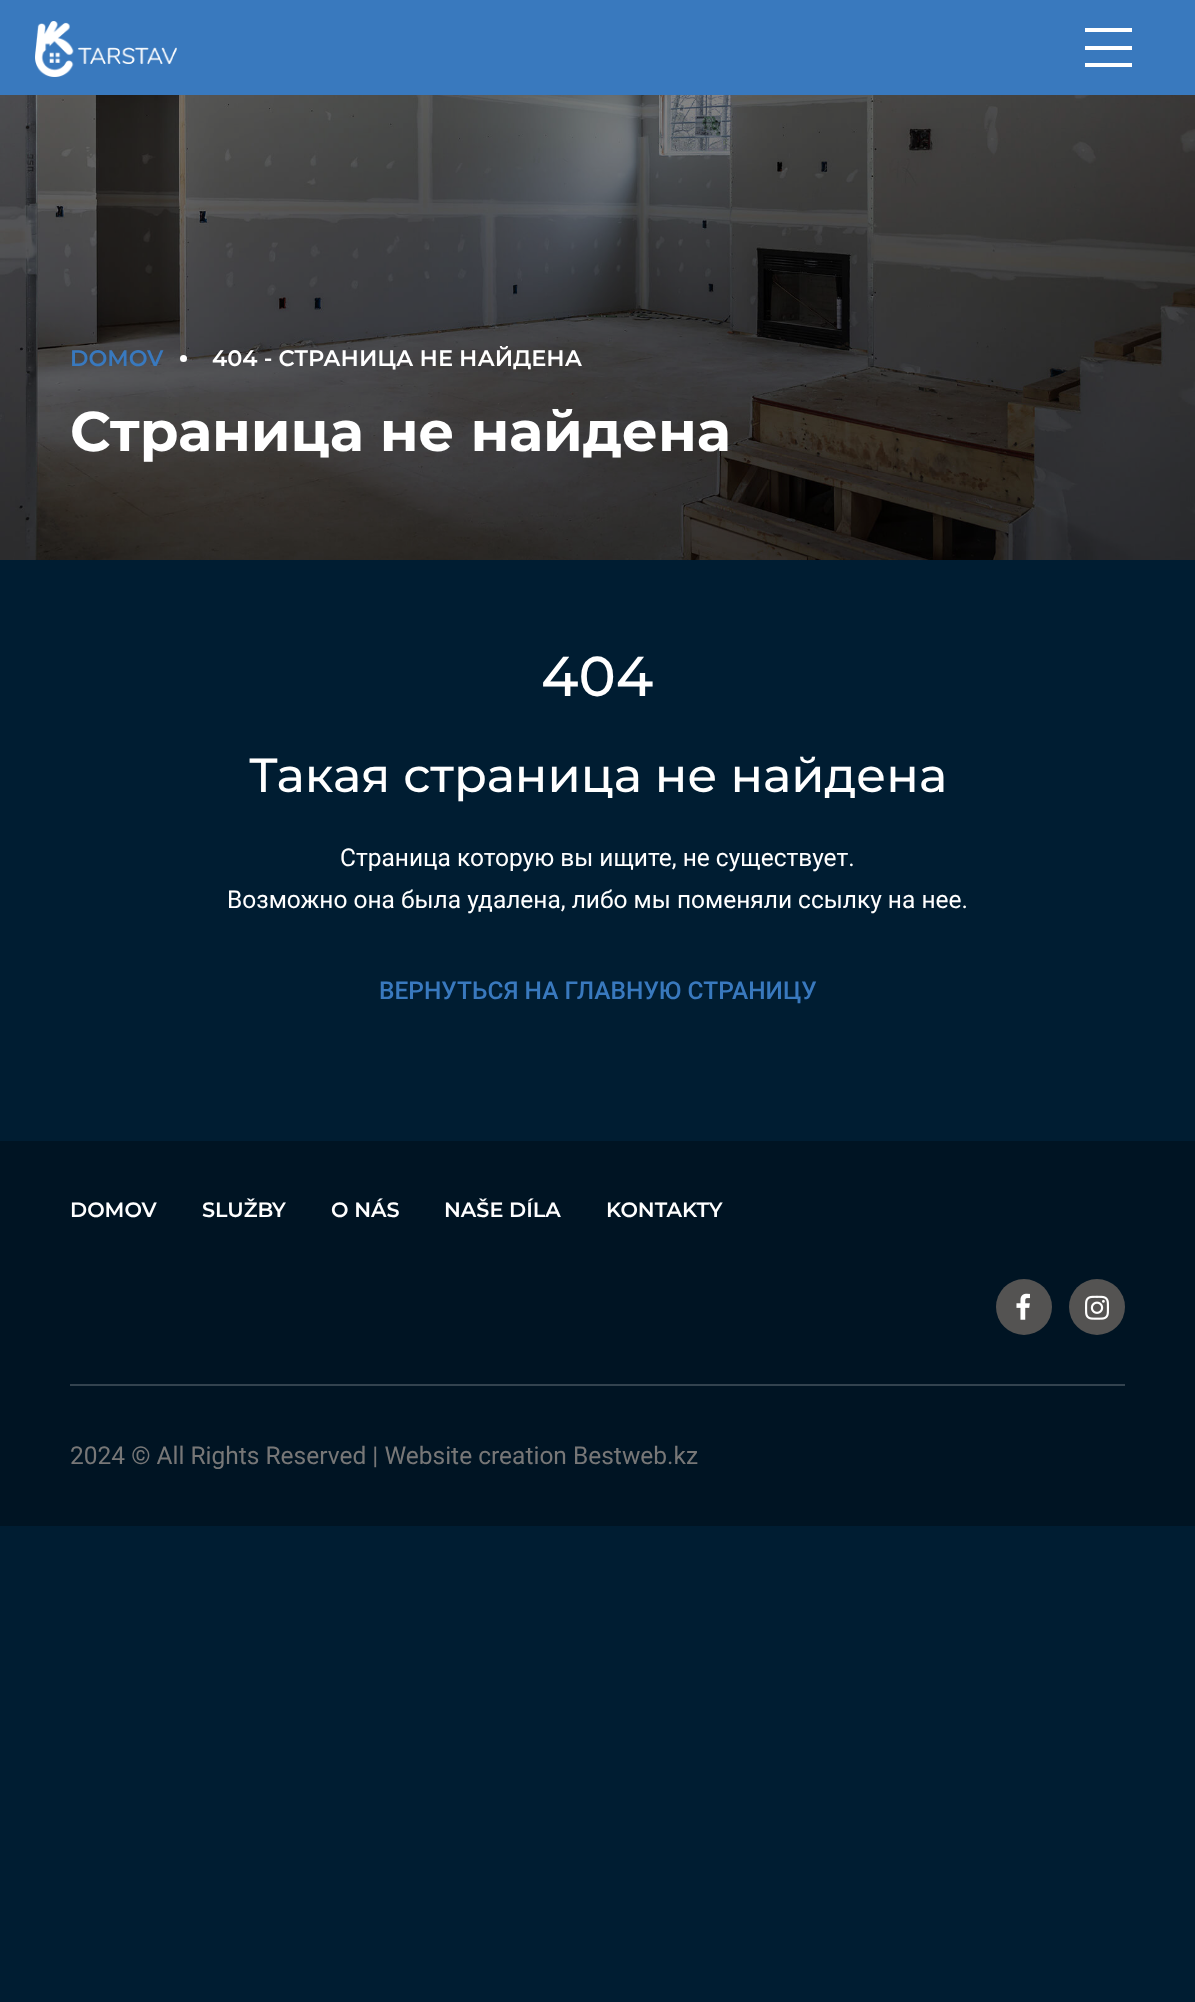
<!DOCTYPE html>
<meta charset="utf-8">
<style>body { margin: 0 } canvas { display: block }</style>
<canvas id="canvas" width="1195" height="2002"></canvas>
<img id="img1" src="images/1.png" hidden>
<img id="img2" src="images/2.png" hidden>
<img id="img3" src="images/3.png" hidden>
<img id="img4" src="images/4.png" hidden>
<script>
window.onload = function () {
    const canvas = document.getElementById('canvas');
    const context = canvas.getContext('2d');
    context.miterLimit = 4;
    context.fontKerning = 'normal';

    context.fillStyle = 'rgb(0, 29, 50)';
    context.fillRect(0, 0, 1195, 2002);
    context.fillStyle = 'rgb(57, 121, 190)';
    context.fillRect(0, 0, 1195, 95);
    context.drawImage(document.getElementById('img1'), 35, 21, 142, 56);
    context.fillStyle = 'rgb(255, 255, 255)';
    context.fillRect(1085, 28, 47, 4);
    context.fillRect(1085, 46, 47, 4);
    context.fillRect(1085, 63, 47, 4);
    context.drawImage(document.getElementById('img2'), 0, 95, 1195, 465);
    context.beginPath();
    context.arc(183.5, 358.5, 3.5, 0, 2 * Math.PI);
    context.fill();
    context.fillStyle = 'rgb(0, 20, 35)';
    context.fillRect(0, 1141, 1195, 385);
    context.fillStyle = 'rgb(84, 83, 82)';
    context.beginPath();
    context.arc(1024, 1307, 28, 0, 2 * Math.PI);
    context.fill();
    context.drawImage(document.getElementById('img3'), 1016, 1293, 14, 27);
    context.beginPath();
    context.arc(1097, 1307, 28, 0, 2 * Math.PI);
    context.fill();
    context.drawImage(document.getElementById('img4'), 1085, 1295, 24, 25);
    context.fillStyle = 'rgb(51, 67, 79)';
    context.fillRect(70, 1384, 1055, 2);
    context.font = '600 22.4px Montserrat';
    context.fillStyle = 'rgb(57, 121, 190)';
    context.fillText('DOMOV', 70, 366);
    context.fillStyle = 'rgb(255, 255, 255)';
    context.fillText('404 - СТРАНИЦА НЕ НАЙДЕНА', 212, 366);
    context.font = 'bold 56px Montserrat';
    context.fillText('Страница не найдена', 70, 451);
    context.font = '500 56px Montserrat';
    context.fillText('404', 541, 696);
    context.font = '500 47.9px Montserrat';
    context.fillText('Такая страница не найдена', 249, 792);
    context.font = '24.5px Roboto';
    context.fillText('Страница которую вы ищите, не существует.', 340, 866);
    context.fillText('Возможно она была удалена, либо мы поменяли ссылку на нее.', 227, 908);
    context.font = '500 24.5px Roboto';
    context.fillStyle = 'rgb(57, 121, 190)';
    context.fillText('ВЕРНУТЬСЯ НА ГЛАВНУЮ СТРАНИЦУ', 379, 999);
    context.font = '600 20.75px Montserrat';
    context.fillStyle = 'rgb(255, 255, 255)';
    context.fillText('DOMOV', 70, 1217);
    context.fillText('SLUŽBY', 202, 1217);
    context.fillText('O NÁS', 331, 1217);
    context.fillText('NAŠE DÍLA', 444, 1217);
    context.fillText('KONTAKTY', 606, 1217);
    context.font = '24.5px Roboto';
    context.fillStyle = 'rgb(119, 119, 119)';
    context.fillText('2024 © All Rights Reserved | Website creation Bestweb.kz', 70, 1464);
};
</script>
